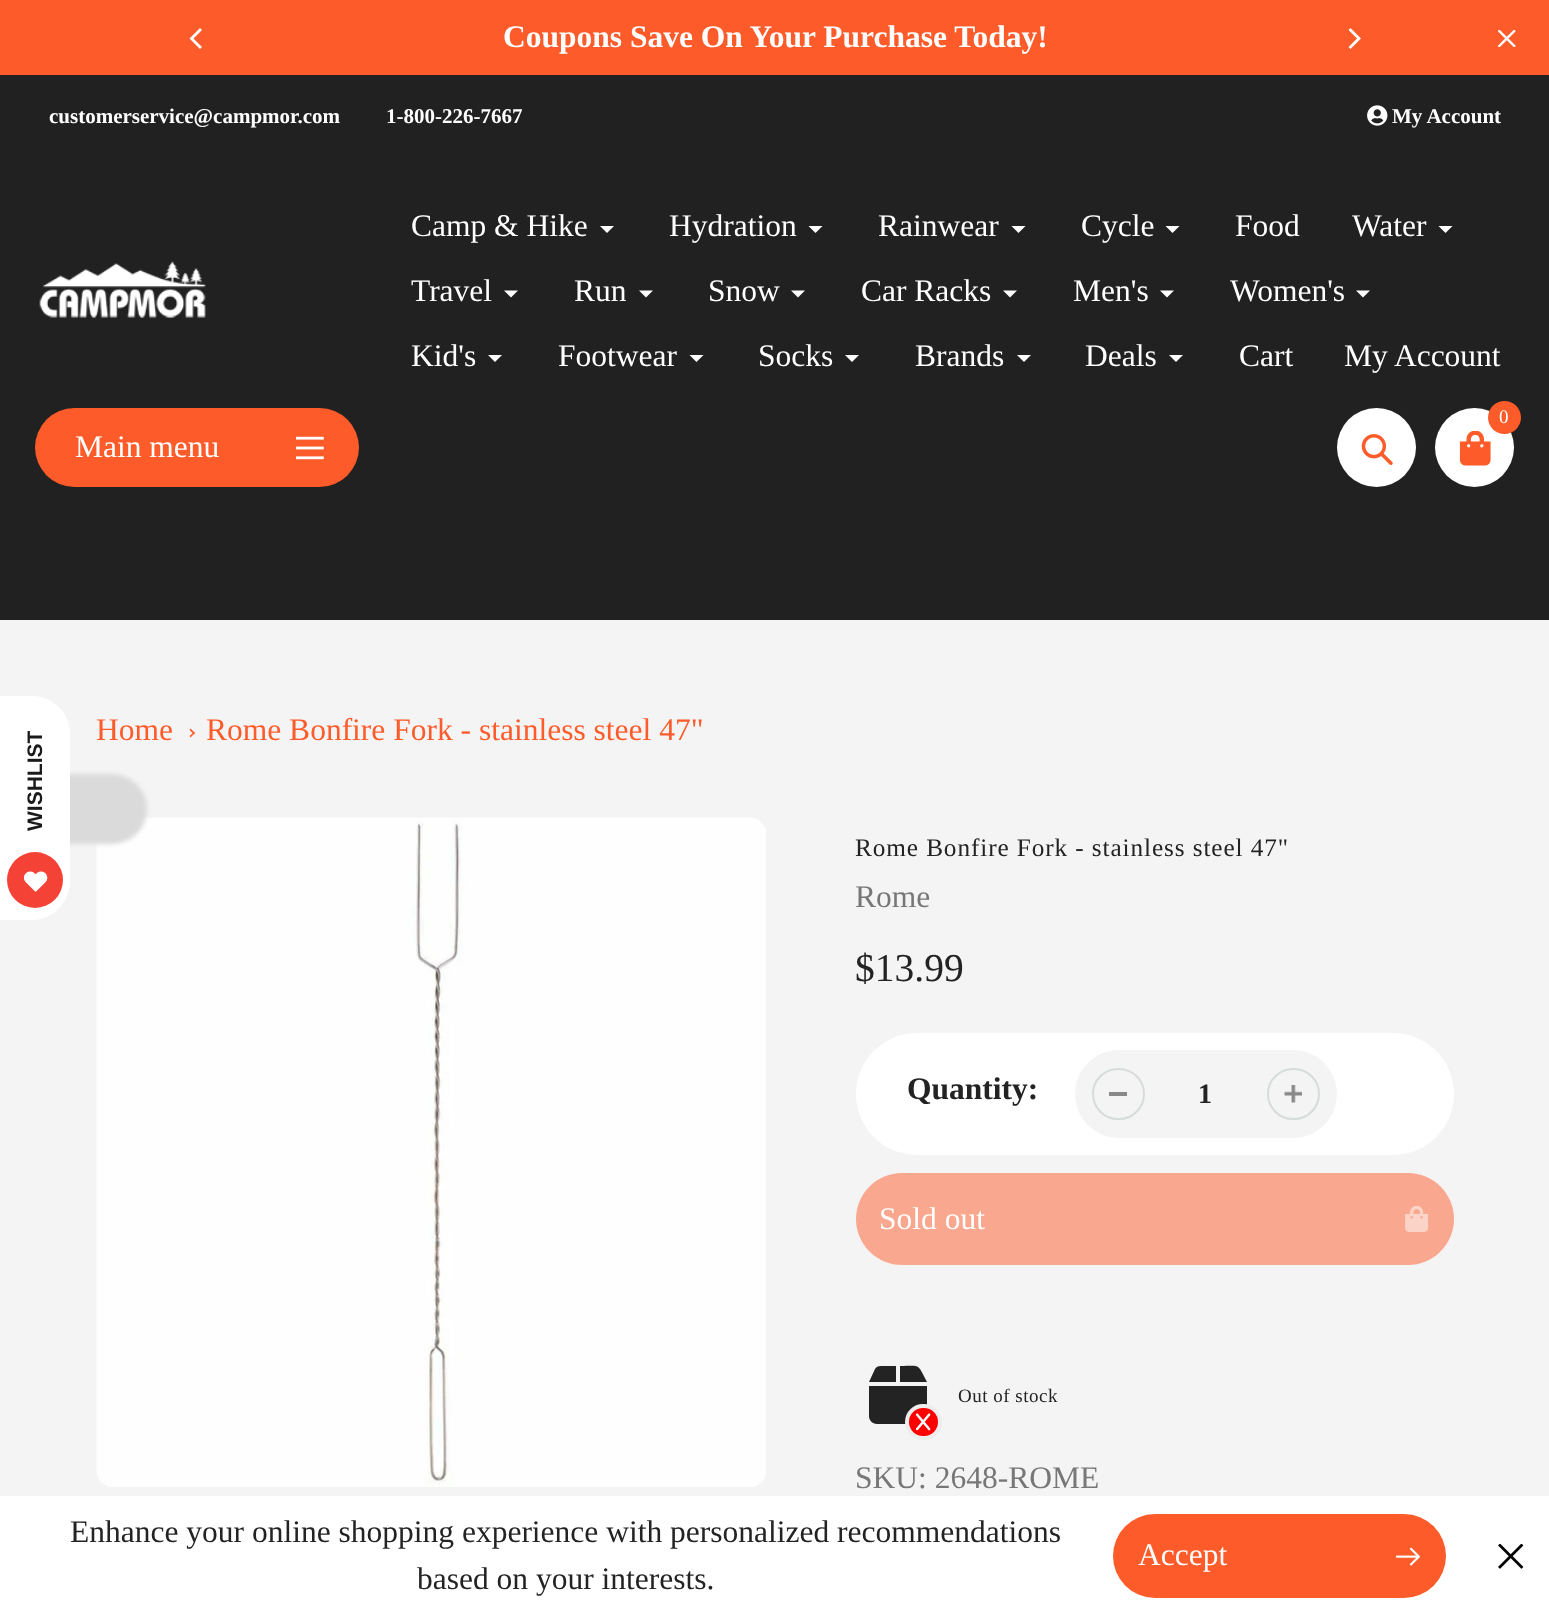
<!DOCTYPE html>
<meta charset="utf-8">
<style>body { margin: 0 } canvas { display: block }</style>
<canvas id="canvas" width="1549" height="1614"></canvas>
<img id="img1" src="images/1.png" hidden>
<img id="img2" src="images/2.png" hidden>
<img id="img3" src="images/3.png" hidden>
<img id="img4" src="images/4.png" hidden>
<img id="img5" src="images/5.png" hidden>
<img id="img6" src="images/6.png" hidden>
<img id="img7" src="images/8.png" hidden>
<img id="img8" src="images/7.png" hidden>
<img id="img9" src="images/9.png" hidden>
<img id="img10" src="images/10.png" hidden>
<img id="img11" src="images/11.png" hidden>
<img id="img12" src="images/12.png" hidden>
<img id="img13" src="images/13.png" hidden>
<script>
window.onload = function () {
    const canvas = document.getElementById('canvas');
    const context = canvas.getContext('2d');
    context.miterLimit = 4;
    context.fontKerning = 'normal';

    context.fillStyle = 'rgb(244, 244, 244)';
    context.fillRect(0, 0, 1549, 1614);
    context.fillStyle = 'rgb(253, 91, 42)';
    context.fillRect(0, 0, 1549, 75);
    context.fillStyle = 'rgb(255, 255, 255)';
    context.beginPath();
    context.moveTo(189.5, 38.5);
    context.lineTo(200, 49);
    context.lineTo(202, 47);
    context.lineTo(193.5, 38.5);
    context.lineTo(202, 30);
    context.lineTo(200, 28);
    context.closePath();
    context.fill();
    context.beginPath();
    context.moveTo(1361, 38.5);
    context.lineTo(1350.5, 28);
    context.lineTo(1348.5, 30);
    context.lineTo(1357, 38.5);
    context.lineTo(1348.5, 47);
    context.lineTo(1350.5, 49);
    context.closePath();
    context.fill();
    context.drawImage(document.getElementById('img1'), 1498, 30, 18, 17);
    context.fillStyle = 'rgb(33, 33, 33)';
    context.fillRect(0, 75, 1549, 545);
    context.drawImage(document.getElementById('img2'), 1367, 105, 21, 21);
    context.drawImage(document.getElementById('img3'), 39, 261, 167, 57);
    context.fillStyle = 'rgb(255, 255, 255)';
    context.beginPath();
    context.moveTo(614, 226);
    context.lineTo(607, 233);
    context.lineTo(600, 226);
    context.fill();
    context.beginPath();
    context.moveTo(822.5, 226);
    context.lineTo(815.5, 233);
    context.lineTo(808.5, 226);
    context.fill();
    context.beginPath();
    context.moveTo(1025.5, 226);
    context.lineTo(1018.5, 233);
    context.lineTo(1011.5, 226);
    context.fill();
    context.beginPath();
    context.moveTo(1179.5, 226);
    context.lineTo(1172.5, 233);
    context.lineTo(1165.5, 226);
    context.fill();
    context.beginPath();
    context.moveTo(1452.5, 226);
    context.lineTo(1445.5, 233);
    context.lineTo(1438.5, 226);
    context.fill();
    context.beginPath();
    context.moveTo(518, 290.5);
    context.lineTo(511, 297.5);
    context.lineTo(504, 290.5);
    context.fill();
    context.beginPath();
    context.moveTo(653, 290.5);
    context.lineTo(646, 297.5);
    context.lineTo(639, 290.5);
    context.fill();
    context.beginPath();
    context.moveTo(805, 290.5);
    context.lineTo(798, 297.5);
    context.lineTo(791, 290.5);
    context.fill();
    context.beginPath();
    context.moveTo(1017, 290.5);
    context.lineTo(1010, 297.5);
    context.lineTo(1003, 290.5);
    context.fill();
    context.beginPath();
    context.moveTo(1174, 290.5);
    context.lineTo(1167, 297.5);
    context.lineTo(1160, 290.5);
    context.fill();
    context.beginPath();
    context.moveTo(1370, 290.5);
    context.lineTo(1363, 297.5);
    context.lineTo(1356, 290.5);
    context.fill();
    context.beginPath();
    context.moveTo(502, 355);
    context.lineTo(495, 362);
    context.lineTo(488, 355);
    context.fill();
    context.beginPath();
    context.moveTo(703.5, 355);
    context.lineTo(696.5, 362);
    context.lineTo(689.5, 355);
    context.fill();
    context.beginPath();
    context.moveTo(859, 355);
    context.lineTo(852, 362);
    context.lineTo(845, 355);
    context.fill();
    context.beginPath();
    context.moveTo(1031, 355);
    context.lineTo(1024, 362);
    context.lineTo(1017, 355);
    context.fill();
    context.beginPath();
    context.moveTo(1183, 355);
    context.lineTo(1176, 362);
    context.lineTo(1169, 355);
    context.fill();
    context.beginPath();
    context.arc(1376.5, 447.5, 39.5, 0, 2 * Math.PI);
    context.fill();
    context.drawImage(document.getElementById('img4'), 1361, 434, 32, 31);
    context.beginPath();
    context.arc(1474.5, 447.5, 39.5, 0, 2 * Math.PI);
    context.fill();
    context.drawImage(document.getElementById('img5'), 1459, 431, 32, 35);
    context.fillStyle = 'rgb(253, 91, 42)';
    context.beginPath();
    context.arc(1504.5, 417.5, 16.5, 0, 2 * Math.PI);
    context.fill();
    context.beginPath();
    context.roundRect(35, 408, 324, 79, 39.5);
    context.fill();
    context.drawImage(document.getElementById('img6'), 296, 436, 28, 24);
    context.drawImage(document.getElementById('img7'), 96, 817, 670, 670);
    context.fillStyle = 'rgb(218, 218, 218)';
    context.filter = 'blur(2px)';
    context.beginPath();
    context.roundRect(-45, 774, 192, 70, 39);
    context.fill();
    context.filter = 'none';
    context.fillStyle = 'rgb(255, 255, 255)';
    context.beginPath();
    context.moveTo(0, 920);
    context.lineTo(0, 696);
    context.lineTo(32, 696);
    context.bezierCurveTo(53, 696, 70, 713, 70, 734);
    context.lineTo(70, 881);
    context.bezierCurveTo(70, 902, 53, 920, 32, 920);
    context.closePath();
    context.fill();
    context.fillStyle = 'rgb(244, 67, 54)';
    context.beginPath();
    context.arc(35, 880, 28, 0, 2 * Math.PI);
    context.fill();
    context.drawImage(document.getElementById('img8'), 23, 871, 25, 21);
    context.fillStyle = 'rgb(253, 91, 42)';
    context.beginPath();
    context.moveTo(190.5, 728.5);
    context.lineTo(195, 733);
    context.lineTo(194, 734.5);
    context.lineTo(189.5, 730);
    context.closePath();
    context.fill();
    context.beginPath();
    context.moveTo(194, 732);
    context.lineTo(195, 733);
    context.lineTo(190.5, 737.5);
    context.lineTo(189.5, 736);
    context.closePath();
    context.fill();
    context.fillStyle = 'rgb(255, 255, 255)';
    context.beginPath();
    context.roundRect(856, 1033, 598, 122, 61);
    context.fill();
    context.fillStyle = 'rgb(244, 244, 244)';
    context.beginPath();
    context.roundRect(1075, 1050, 262, 88, 44);
    context.fill();
    context.fillStyle = 'rgb(137, 137, 137)';
    context.fillRect(1109, 1092, 18, 4);
    context.beginPath();
    context.roundRect(1093, 1069, 51, 50, 25);
    context.strokeStyle = 'rgb(215, 219, 219)';
    context.lineWidth = 2;
    context.stroke();
    context.drawImage(document.getElementById('img9'), 1284, 1085, 18, 18);
    context.beginPath();
    context.roundRect(1268, 1069, 51, 50, 25);
    context.stroke();
    context.fillStyle = 'rgb(249, 168, 143)';
    context.beginPath();
    context.roundRect(856, 1173, 598, 92, 46);
    context.fill();
    context.drawImage(document.getElementById('img10'), 1405, 1206, 24, 26);
    context.fillStyle = 'rgb(35, 35, 35)';
    context.beginPath();
    context.moveTo(875, 1369);
    context.lineTo(869, 1382);
    context.lineTo(896, 1382);
    context.lineTo(896, 1366);
    context.lineTo(881, 1366);
    context.bezierCurveTo(878, 1366, 876, 1367, 875, 1369);
    context.closePath();
    context.moveTo(900, 1382);
    context.lineTo(927, 1382);
    context.bezierCurveTo(917, 1363, 921, 1366, 900, 1366);
    context.closePath();
    context.moveTo(927, 1386);
    context.lineTo(869, 1386);
    context.lineTo(869, 1416);
    context.bezierCurveTo(869, 1420, 872, 1424, 877, 1424);
    context.lineTo(919, 1424);
    context.bezierCurveTo(923, 1424, 927, 1420, 927, 1416);
    context.closePath();
    context.fill();
    context.fillStyle = 'rgb(255, 0, 0)';
    context.beginPath();
    context.roundRect(907, 1406, 33, 32, 16);
    context.fill();
    context.strokeStyle = 'rgb(237, 237, 237)';
    context.lineWidth = 4;
    context.stroke();
    context.drawImage(document.getElementById('img11'), 915, 1413, 16, 18);
    context.fillStyle = 'rgb(255, 255, 255)';
    context.fillRect(0, 1496, 1549, 118);
    context.fillStyle = 'rgb(253, 91, 42)';
    context.beginPath();
    context.roundRect(1113, 1514, 333, 84, 42);
    context.fill();
    context.drawImage(document.getElementById('img12'), 1395, 1547, 25, 19);
    context.drawImage(document.getElementById('img13'), 1498, 1544, 26, 25);
    context.font = 'bold 31.5px Liberation Serif';
    context.fillStyle = 'rgb(255, 255, 255)';
    context.fillText('Coupons Save On Your Purchase Today!', 503, 47);
    context.font = 'bold 21px Liberation Serif';
    context.fillText('customerservice@campmor.com', 49, 123);
    context.fillText('1-800-226-7667', 386, 123);
    context.fillText('My Account', 1392, 123);
    context.font = '31.5px Liberation Serif';
    context.fillText('Camp & Hike', 411, 236);
    context.fillText('Hydration', 669, 236);
    context.fillText('Rainwear', 878, 236);
    context.fillText('Cycle', 1081, 236);
    context.fillText('Food', 1235, 236);
    context.fillText('Water', 1352, 236);
    context.fillText('Travel', 411, 301);
    context.fillText('Run', 574, 301);
    context.fillText('Snow', 708, 301);
    context.fillText('Car Racks', 861, 301);
    context.fillText('Men\'s', 1073, 301);
    context.fillText('Women\'s', 1230, 301);
    context.fillText('Kid\'s', 411, 366);
    context.fillText('Footwear', 558, 366);
    context.fillText('Socks', 758, 366);
    context.fillText('Brands', 915, 366);
    context.fillText('Deals', 1085, 366);
    context.fillText('Cart', 1239, 366);
    context.fillText('My Account', 1344, 366);
    context.font = '19px Liberation Serif';
    context.fillText('0', 1499, 423);
    context.font = '31.5px Liberation Serif';
    context.fillText('Main menu', 75, 457);
    context.font = 'bold 21px Liberation Sans';
    context.fillStyle = 'rgb(26, 26, 26)';
    context.save();
    context.translate(42, 831);
    context.rotate(-90 * Math.PI / 180);
    context.fillText('WISHLIST', 0, 0);
    context.restore();
    context.font = '31.5px Liberation Serif';
    context.fillStyle = 'rgb(253, 91, 42)';
    context.fillText('Home', 96, 740);
    context.fillText('Rome Bonfire Fork - stainless steel 47"', 206, 740);
    context.letterSpacing = '0.9px';
    context.font = '25.25px Liberation Serif';
    context.fillStyle = 'rgb(35, 35, 35)';
    context.fillText('Rome Bonfire Fork - stainless steel 47"', 855, 856);
    context.letterSpacing = '0px';
    context.font = '31.5px Liberation Serif';
    context.fillStyle = 'rgb(119, 119, 119)';
    context.fillText('Rome', 855, 907);
    context.font = '39.5px Liberation Serif';
    context.fillStyle = 'rgb(35, 35, 35)';
    context.fillText('$13.99', 855, 981);
    context.font = 'bold 31.5px Liberation Serif';
    context.fillText('Quantity:', 907, 1099);
    context.font = 'bold 28px Liberation Serif';
    context.fillText('1', 1198, 1103);
    context.font = '31.5px Liberation Serif';
    context.fillStyle = 'rgb(255, 255, 255)';
    context.fillText('Sold out', 879, 1229);
    context.letterSpacing = '0.5px';
    context.font = '19px Liberation Serif';
    context.fillStyle = 'rgb(35, 35, 35)';
    context.fillText('Out of stock', 958, 1402);
    context.letterSpacing = '0px';
    context.font = '31.5px Liberation Serif';
    context.fillStyle = 'rgb(119, 119, 119)';
    context.fillText('SKU: 2648-ROME', 855, 1488);
    context.fillStyle = 'rgb(35, 35, 35)';
    context.fillText('Enhance your online shopping experience with personalized recommendations', 70, 1542);
    context.fillText('based on your interests.', 417, 1589);
    context.fillStyle = 'rgb(255, 255, 255)';
    context.fillText('Accept', 1138, 1565);
};
</script>
